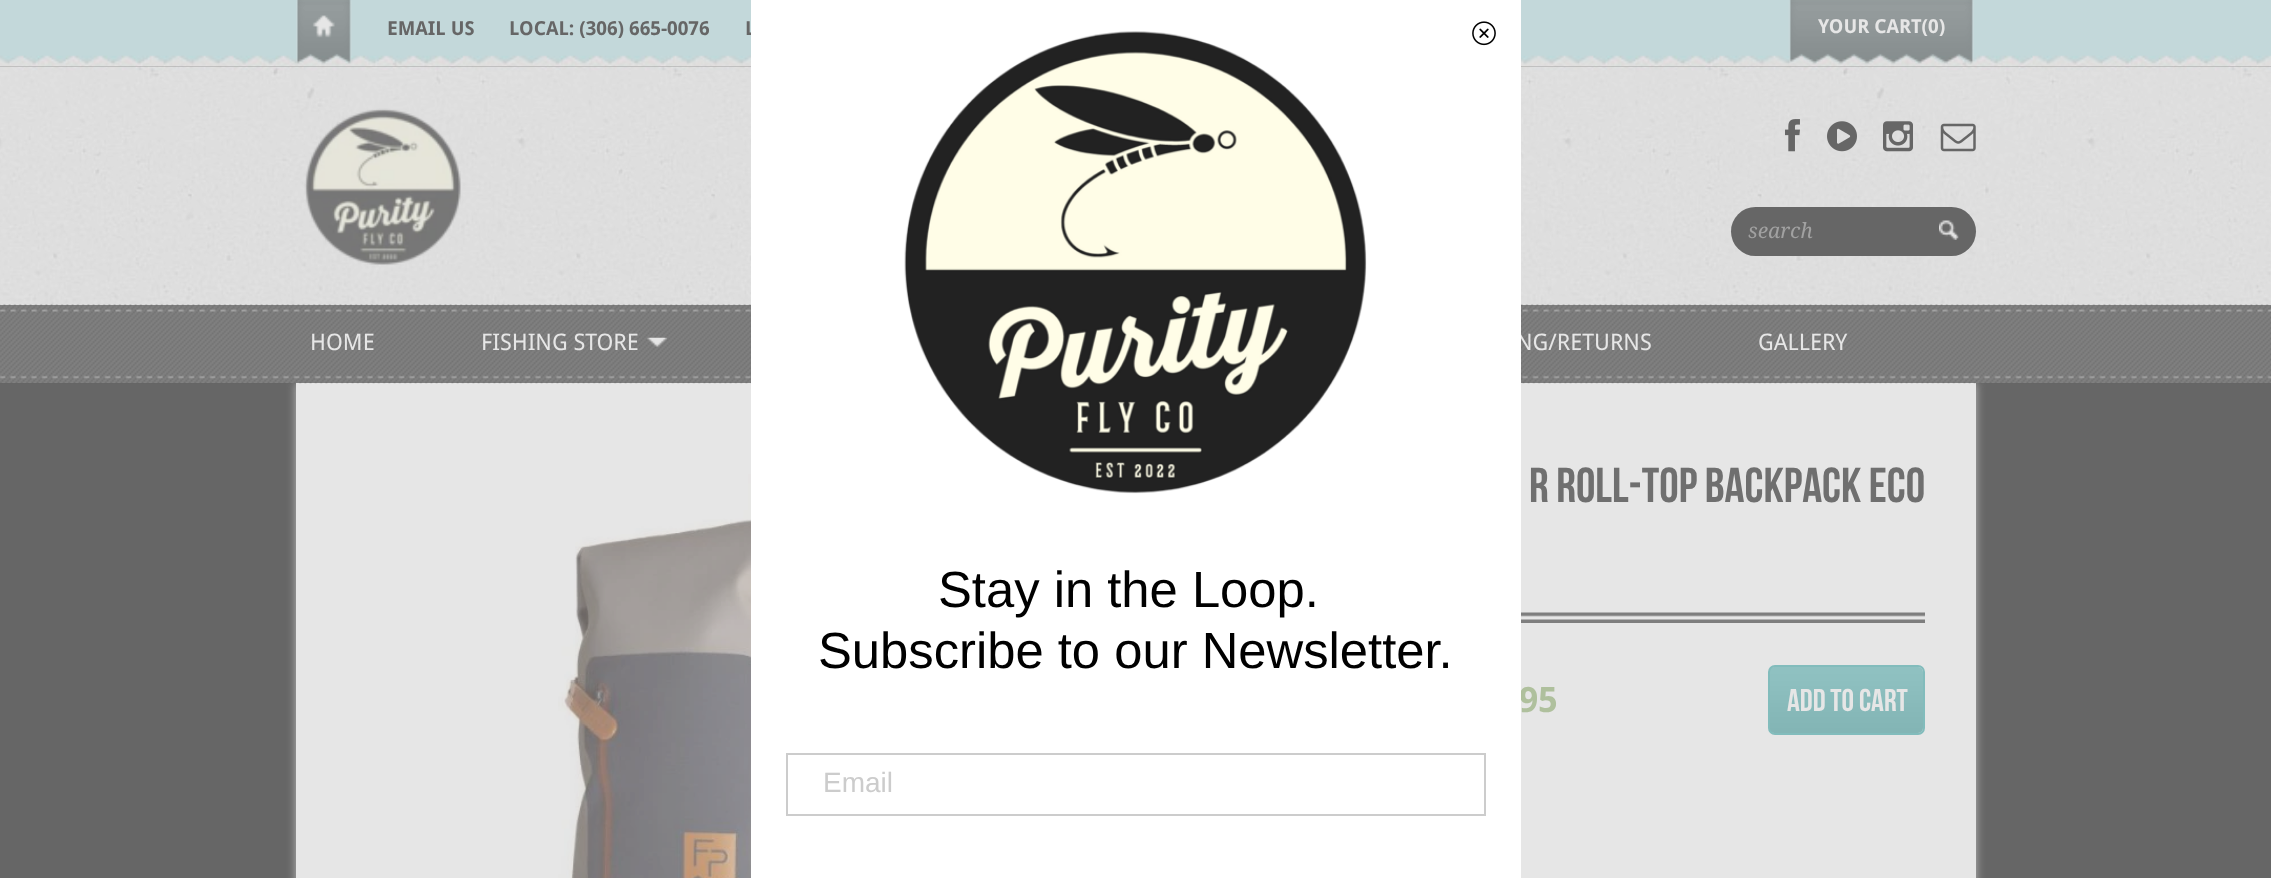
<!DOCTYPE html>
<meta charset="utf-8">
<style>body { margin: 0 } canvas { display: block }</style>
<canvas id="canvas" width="2271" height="878"></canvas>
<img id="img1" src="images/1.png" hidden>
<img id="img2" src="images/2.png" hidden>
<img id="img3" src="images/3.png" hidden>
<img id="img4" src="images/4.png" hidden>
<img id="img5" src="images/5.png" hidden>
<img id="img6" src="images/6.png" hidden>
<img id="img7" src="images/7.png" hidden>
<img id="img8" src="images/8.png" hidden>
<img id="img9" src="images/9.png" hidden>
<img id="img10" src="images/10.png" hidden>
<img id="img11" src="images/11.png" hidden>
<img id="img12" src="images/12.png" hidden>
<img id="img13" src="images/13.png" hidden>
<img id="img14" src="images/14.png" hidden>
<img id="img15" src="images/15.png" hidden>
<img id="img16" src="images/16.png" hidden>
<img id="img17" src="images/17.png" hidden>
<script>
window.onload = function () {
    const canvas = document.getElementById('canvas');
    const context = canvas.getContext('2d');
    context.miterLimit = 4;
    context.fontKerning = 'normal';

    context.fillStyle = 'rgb(102, 102, 102)';
    context.fillRect(0, 0, 2271, 878);
    context.drawImage(document.getElementById('img1'), 0, 0, 2271, 67);
    context.drawImage(document.getElementById('img2'), 296, 0, 56, 64);
    context.drawImage(document.getElementById('img3'), 1788, 0, 186, 64);
    context.drawImage(document.getElementById('img4'), 0, 66, 2271, 239);
    context.drawImage(document.getElementById('img5'), 304, 108, 157, 157);
    context.drawImage(document.getElementById('img6'), 1785, 119, 15, 33);
    context.drawImage(document.getElementById('img7'), 1827, 121, 30, 31);
    context.drawImage(document.getElementById('img8'), 1883, 121, 30, 31);
    context.drawImage(document.getElementById('img9'), 1940, 123, 36, 29);
    context.beginPath();
    context.roundRect(1731, 207, 245, 49, 24.5);
    context.fill();
    context.drawImage(document.getElementById('img10'), 1939, 220, 20, 20);
    context.fillStyle = 'rgb(185, 185, 185)';
    context.filter = 'blur(5px)';
    context.beginPath();
    context.rect(296, 383, 1680, 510);
    context.fill();
    context.filter = 'none';
    context.fillStyle = 'rgb(128, 128, 128)';
    context.fillRect(0, 305, 2271, 78);
    context.fillStyle = 'rgb(230, 230, 230)';
    context.fillRect(296, 383, 1680, 495);
    context.drawImage(document.getElementById('img11'), 0, 304, 2271, 80);
    context.drawImage(document.getElementById('img12'), 647, 337, 20, 10);
    context.drawImage(document.getElementById('img13'), 558, 474, 193, 404);
    context.drawImage(document.getElementById('img14'), 1521, 612, 404, 11);
    context.fillStyle = 'rgb(130, 188, 188)';
    context.beginPath();
    context.roundRect(1769, 667, 154, 66, 5);
    context.fill();
    context.drawImage(document.getElementById('img15'), 1770, 667, 153, 66);
    context.beginPath();
    context.roundRect(1769, 666, 155, 68, 6);
    context.strokeStyle = 'rgb(130, 188, 188)';
    context.lineWidth = 2;
    context.stroke();
    context.font = 'bold 19.25px Droid Sans';
    context.fillStyle = 'rgb(102, 102, 102)';
    context.fillText('EMAIL US', 387, 35);
    context.fillText('LOCAL: (306) 665-0076', 509, 35);
    context.fillText('L', 745, 35);
    context.fillStyle = 'rgb(230, 230, 230)';
    context.fillText('YOUR CART(0)', 1818, 33);
    context.font = 'italic 21px Droid Serif';
    context.fillStyle = 'rgb(161, 161, 161)';
    context.fillText('search', 1748, 238);
    context.font = '22.75px Droid Sans';
    context.fillStyle = 'rgb(230, 230, 230)';
    context.fillText('HOME', 310, 350);
    context.fillText('FISHING STORE', 481, 350);
    context.fillText('NG/RETURNS', 1516, 350);
    context.fillText('GALLERY', 1758, 350);
    context.font = '49px Bebas Neue';
    context.fillStyle = 'rgb(111, 111, 111)';
    context.fillText('r Roll-Top Backpack Eco', 1529, 502);
    context.font = 'bold 35px Droid Sans';
    context.fillStyle = 'rgb(175, 192, 157)';
    context.fillText('95', 1519, 712);
    context.font = '31.5px Bebas Neue';
    context.fillStyle = 'rgb(230, 230, 230)';
    context.fillText('ADD TO CART', 1787, 711);
    context.fillStyle = 'rgb(255, 255, 255)';
    context.fillRect(751, 0, 770, 878);
    context.drawImage(document.getElementById('img16'), 1472, 21, 24, 25);
    context.drawImage(document.getElementById('img17'), 904, 31, 463, 463);
    context.font = '50.75px Liberation Sans';
    context.fillStyle = 'rgb(0, 0, 0)';
    context.fillText('Stay in the Loop.', 938, 607);
    context.fillText('Subscribe to our Newsletter.', 818, 668);
    context.strokeStyle = 'rgb(204, 204, 204)';
    context.strokeRect(787, 754, 698, 61);
    context.font = '28px Liberation Sans';
    context.fillStyle = 'rgb(204, 204, 204)';
    context.fillText('Email', 823, 792);
};
</script>
